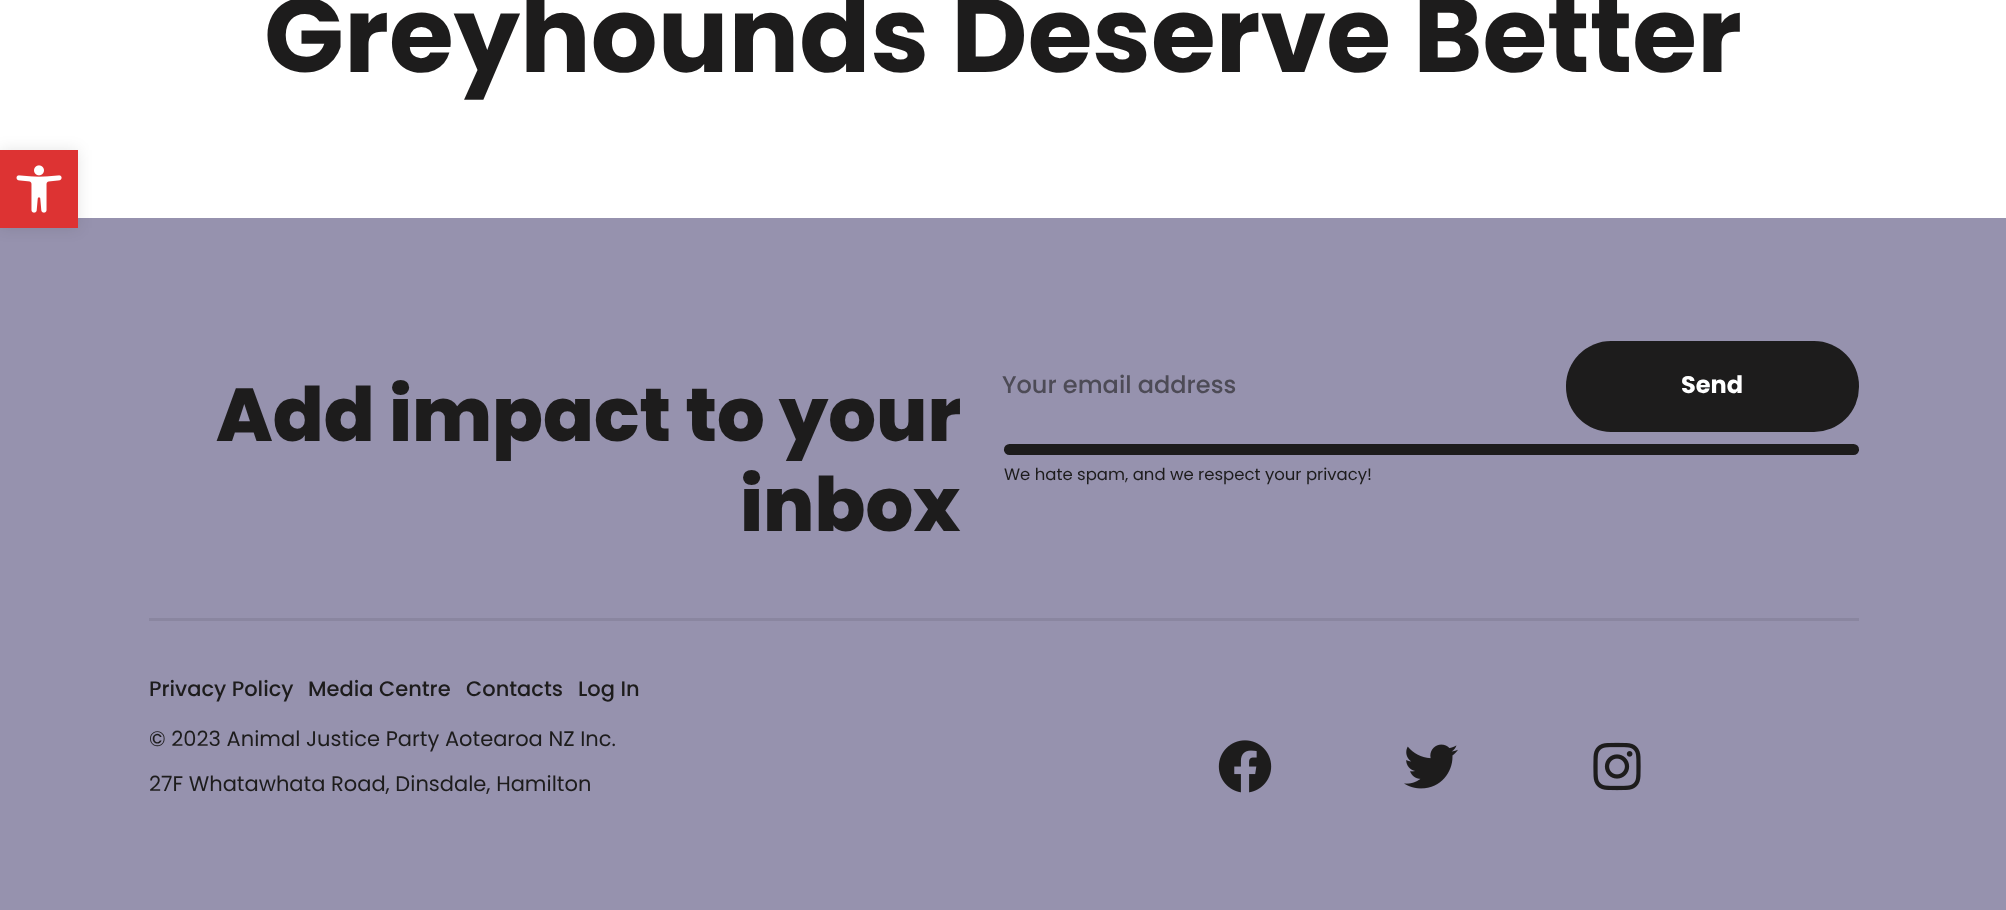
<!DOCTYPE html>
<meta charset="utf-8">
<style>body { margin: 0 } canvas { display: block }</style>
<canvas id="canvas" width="2006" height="910"></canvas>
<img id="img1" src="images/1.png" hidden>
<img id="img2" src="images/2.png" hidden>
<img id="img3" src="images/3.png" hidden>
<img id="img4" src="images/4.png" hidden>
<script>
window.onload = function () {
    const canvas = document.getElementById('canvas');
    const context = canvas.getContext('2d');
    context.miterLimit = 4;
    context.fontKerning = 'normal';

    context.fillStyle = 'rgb(255, 255, 255)';
    context.fillRect(0, 0, 2006, 910);
    context.fillStyle = 'rgb(150, 146, 174)';
    context.fillRect(0, 218, 2006, 692);
    context.fillStyle = 'rgba(0, 0, 0, 0.1)';
    context.filter = 'blur(7.5px)';
    context.beginPath();
    context.rect(0, 150, 78, 78);
    context.fill();
    context.filter = 'none';
    context.fillStyle = 'rgb(221, 51, 51)';
    context.fillRect(0, 150, 78, 78);
    context.drawImage(document.getElementById('img1'), 16, 165, 46, 48);
    context.fillStyle = 'rgb(29, 28, 28)';
    context.beginPath();
    context.roundRect(1566, 341, 293, 91, 45);
    context.fill();
    context.beginPath();
    context.roundRect(1004, 444, 855, 11, 5.5);
    context.fill();
    context.fillRect(1004, 449, 855, 2);
    context.fillStyle = 'rgb(138, 134, 160)';
    context.fillRect(149, 618, 1710, 3);
    context.drawImage(document.getElementById('img2'), 1218, 740, 54, 53);
    context.drawImage(document.getElementById('img3'), 1404, 744, 54, 45);
    context.drawImage(document.getElementById('img4'), 1593, 742, 48, 49);
    context.font = 'bold 105px Poppins';
    context.fillStyle = 'rgb(29, 28, 28)';
    context.fillText('Greyhounds Deserve Better', 264, 72);
    context.font = '800 75px Poppins';
    context.fillText('Add impact to your', 216, 441);
    context.fillText('inbox', 740, 531);
    context.font = '500 24px Poppins';
    context.fillStyle = 'rgb(77, 75, 86)';
    context.fillText('Your email address', 1002, 393);
    context.font = 'bold 24px Poppins';
    context.fillStyle = 'rgb(255, 255, 255)';
    context.fillText('Send', 1681, 393);
    context.font = '16.5px Poppins';
    context.fillStyle = 'rgb(29, 28, 28)';
    context.fillText('We hate spam, and we respect your privacy!', 1004, 480);
    context.font = '500 21px Poppins';
    context.fillText('Privacy Policy', 149, 696);
    context.fillText('Media Centre', 308, 696);
    context.fillText('Contacts', 466, 696);
    context.fillText('Log In', 578, 696);
    context.font = '21px Poppins';
    context.fillText('© 2023 Animal Justice Party Aotearoa NZ Inc.', 149, 746);
    context.fillText('27F Whatawhata Road, Dinsdale, Hamilton', 149, 791);
};
</script>
